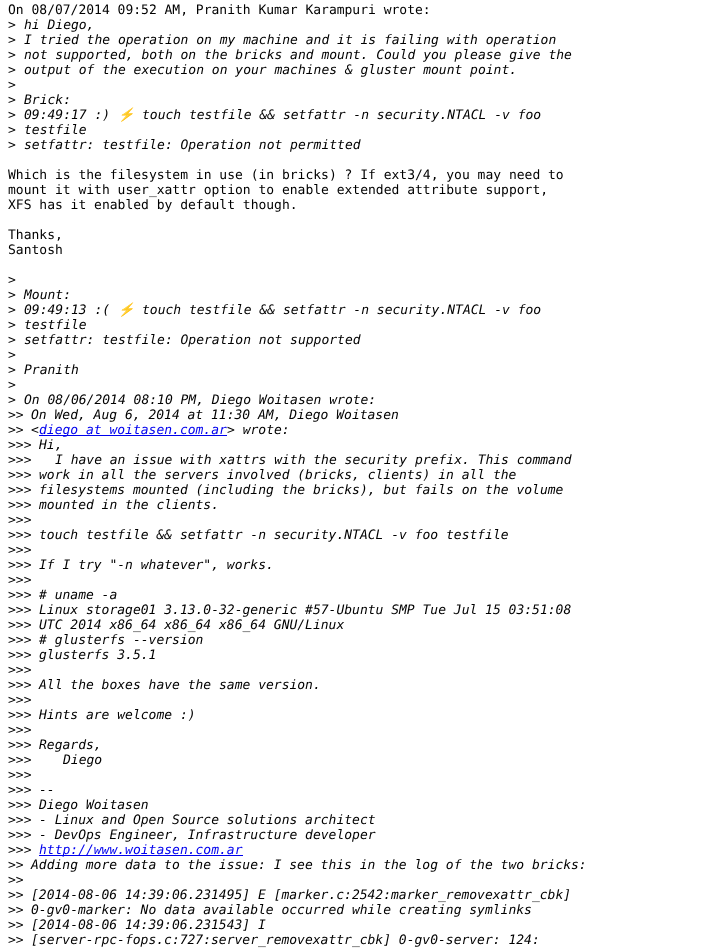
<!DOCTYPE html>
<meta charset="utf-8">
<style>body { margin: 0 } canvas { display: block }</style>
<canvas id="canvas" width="703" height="948"></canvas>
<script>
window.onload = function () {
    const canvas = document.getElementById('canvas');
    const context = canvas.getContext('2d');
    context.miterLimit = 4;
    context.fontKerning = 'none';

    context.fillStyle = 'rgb(255, 255, 255)';
    context.fillRect(0, 0, 703, 948);
    context.fillStyle = 'rgb(0, 0, 238)';
    context.fillRect(39, 435, 188, 1);
    context.fillRect(39, 855, 204, 1);
    context.font = '13px DejaVu Sans Mono';
    context.fillStyle = 'rgb(0, 0, 0)';
    context.fillText('On 08/07/2014 09:52 AM, Pranith Kumar Karampuri wrote:', 8, 14);
    context.fillText('>', 8, 29);
    context.font = 'italic 13px DejaVu Sans Mono';
    context.fillText('hi Diego,', 24, 29);
    context.font = '13px DejaVu Sans Mono';
    context.fillText('>', 8, 44);
    context.font = 'italic 13px DejaVu Sans Mono';
    context.fillText('I tried the operation on my machine and it is failing with operation', 24, 44);
    context.font = '13px DejaVu Sans Mono';
    context.fillText('>', 8, 59);
    context.font = 'italic 13px DejaVu Sans Mono';
    context.fillText('not supported, both on the bricks and mount. Could you please give the', 24, 59);
    context.font = '13px DejaVu Sans Mono';
    context.fillText('>', 8, 74);
    context.font = 'italic 13px DejaVu Sans Mono';
    context.fillText('output of the execution on your machines & gluster mount point.', 24, 74);
    context.font = '13px DejaVu Sans Mono';
    context.fillText('>', 8, 89);
    context.fillText('>', 8, 104);
    context.font = 'italic 13px DejaVu Sans Mono';
    context.fillText('Brick:', 24, 104);
    context.font = '13px DejaVu Sans Mono';
    context.fillText('>', 8, 119);
    context.font = 'italic 13px DejaVu Sans Mono';
    context.fillText('09:49:17 :)', 24, 119);
    context.font = 'italic 13px Noto Color Emoji';
    context.fillText('⚡', 118, 119);
    context.font = 'italic 13px DejaVu Sans Mono';
    context.fillText('touch testfile && setfattr -n security.NTACL -v foo', 142, 119);
    context.font = '13px DejaVu Sans Mono';
    context.fillText('>', 8, 134);
    context.font = 'italic 13px DejaVu Sans Mono';
    context.fillText('testfile', 24, 134);
    context.font = '13px DejaVu Sans Mono';
    context.fillText('>', 8, 149);
    context.font = 'italic 13px DejaVu Sans Mono';
    context.fillText('setfattr: testfile: Operation not permitted', 24, 149);
    context.font = '13px DejaVu Sans Mono';
    context.fillText('Which is the filesystem in use (in bricks) ? If ext3/4, you may need to', 8, 179);
    context.fillText('mount it with user_xattr option to enable extended attribute support,', 8, 194);
    context.fillText('XFS has it enabled by default though.', 8, 209);
    context.fillText('Thanks,', 8, 239);
    context.fillText('Santosh', 8, 254);
    context.fillText('>', 8, 284);
    context.fillText('>', 8, 299);
    context.font = 'italic 13px DejaVu Sans Mono';
    context.fillText('Mount:', 24, 299);
    context.font = '13px DejaVu Sans Mono';
    context.fillText('>', 8, 314);
    context.font = 'italic 13px DejaVu Sans Mono';
    context.fillText('09:49:13 :(', 24, 314);
    context.font = 'italic 13px Noto Color Emoji';
    context.fillText('⚡', 118, 314);
    context.font = 'italic 13px DejaVu Sans Mono';
    context.fillText('touch testfile && setfattr -n security.NTACL -v foo', 142, 314);
    context.font = '13px DejaVu Sans Mono';
    context.fillText('>', 8, 329);
    context.font = 'italic 13px DejaVu Sans Mono';
    context.fillText('testfile', 24, 329);
    context.font = '13px DejaVu Sans Mono';
    context.fillText('>', 8, 344);
    context.font = 'italic 13px DejaVu Sans Mono';
    context.fillText('setfattr: testfile: Operation not supported', 24, 344);
    context.font = '13px DejaVu Sans Mono';
    context.fillText('>', 8, 359);
    context.fillText('>', 8, 374);
    context.font = 'italic 13px DejaVu Sans Mono';
    context.fillText('Pranith', 24, 374);
    context.font = '13px DejaVu Sans Mono';
    context.fillText('>', 8, 389);
    context.fillText('>', 8, 404);
    context.font = 'italic 13px DejaVu Sans Mono';
    context.fillText('On 08/06/2014 08:10 PM, Diego Woitasen wrote:', 24, 404);
    context.font = '13px DejaVu Sans Mono';
    context.fillText('>>', 8, 419);
    context.font = 'italic 13px DejaVu Sans Mono';
    context.fillText('On Wed, Aug 6, 2014 at 11:30 AM, Diego Woitasen', 31, 419);
    context.font = '13px DejaVu Sans Mono';
    context.fillText('>>', 8, 434);
    context.font = 'italic 13px DejaVu Sans Mono';
    context.fillText('<', 31, 434);
    context.fillStyle = 'rgb(0, 0, 238)';
    context.fillText('diego at woitasen.com.ar', 39, 434);
    context.fillStyle = 'rgb(0, 0, 0)';
    context.fillText('> wrote:', 227, 434);
    context.font = '13px DejaVu Sans Mono';
    context.fillText('>>>', 8, 449);
    context.font = 'italic 13px DejaVu Sans Mono';
    context.fillText('Hi,', 39, 449);
    context.font = '13px DejaVu Sans Mono';
    context.fillText('>>>', 8, 464);
    context.font = 'italic 13px DejaVu Sans Mono';
    context.fillText('I have an issue with xattrs with the security prefix. This command', 55, 464);
    context.font = '13px DejaVu Sans Mono';
    context.fillText('>>>', 8, 479);
    context.font = 'italic 13px DejaVu Sans Mono';
    context.fillText('work in all the servers involved (bricks, clients) in all the', 39, 479);
    context.font = '13px DejaVu Sans Mono';
    context.fillText('>>>', 8, 494);
    context.font = 'italic 13px DejaVu Sans Mono';
    context.fillText('filesystems mounted (including the bricks), but fails on the volume', 39, 494);
    context.font = '13px DejaVu Sans Mono';
    context.fillText('>>>', 8, 509);
    context.font = 'italic 13px DejaVu Sans Mono';
    context.fillText('mounted in the clients.', 39, 509);
    context.font = '13px DejaVu Sans Mono';
    context.fillText('>>>', 8, 524);
    context.fillText('>>>', 8, 539);
    context.font = 'italic 13px DejaVu Sans Mono';
    context.fillText('touch testfile && setfattr -n security.NTACL -v foo testfile', 39, 539);
    context.font = '13px DejaVu Sans Mono';
    context.fillText('>>>', 8, 554);
    context.fillText('>>>', 8, 569);
    context.font = 'italic 13px DejaVu Sans Mono';
    context.fillText('If I try "-n whatever", works.', 39, 569);
    context.font = '13px DejaVu Sans Mono';
    context.fillText('>>>', 8, 584);
    context.fillText('>>>', 8, 599);
    context.font = 'italic 13px DejaVu Sans Mono';
    context.fillText('# uname -a', 39, 599);
    context.font = '13px DejaVu Sans Mono';
    context.fillText('>>>', 8, 614);
    context.font = 'italic 13px DejaVu Sans Mono';
    context.fillText('Linux storage01 3.13.0-32-generic #57-Ubuntu SMP Tue Jul 15 03:51:08', 39, 614);
    context.font = '13px DejaVu Sans Mono';
    context.fillText('>>>', 8, 629);
    context.font = 'italic 13px DejaVu Sans Mono';
    context.fillText('UTC 2014 x86_64 x86_64 x86_64 GNU/Linux', 39, 629);
    context.font = '13px DejaVu Sans Mono';
    context.fillText('>>>', 8, 644);
    context.font = 'italic 13px DejaVu Sans Mono';
    context.fillText('# glusterfs --version', 39, 644);
    context.font = '13px DejaVu Sans Mono';
    context.fillText('>>>', 8, 659);
    context.font = 'italic 13px DejaVu Sans Mono';
    context.fillText('glusterfs 3.5.1', 39, 659);
    context.font = '13px DejaVu Sans Mono';
    context.fillText('>>>', 8, 674);
    context.fillText('>>>', 8, 689);
    context.font = 'italic 13px DejaVu Sans Mono';
    context.fillText('All the boxes have the same version.', 39, 689);
    context.font = '13px DejaVu Sans Mono';
    context.fillText('>>>', 8, 704);
    context.fillText('>>>', 8, 719);
    context.font = 'italic 13px DejaVu Sans Mono';
    context.fillText('Hints are welcome :)', 39, 719);
    context.font = '13px DejaVu Sans Mono';
    context.fillText('>>>', 8, 734);
    context.fillText('>>>', 8, 749);
    context.font = 'italic 13px DejaVu Sans Mono';
    context.fillText('Regards,', 39, 749);
    context.font = '13px DejaVu Sans Mono';
    context.fillText('>>>', 8, 764);
    context.font = 'italic 13px DejaVu Sans Mono';
    context.fillText('Diego', 63, 764);
    context.font = '13px DejaVu Sans Mono';
    context.fillText('>>>', 8, 779);
    context.fillText('>>>', 8, 794);
    context.font = 'italic 13px DejaVu Sans Mono';
    context.fillText('--', 39, 794);
    context.font = '13px DejaVu Sans Mono';
    context.fillText('>>>', 8, 809);
    context.font = 'italic 13px DejaVu Sans Mono';
    context.fillText('Diego Woitasen', 39, 809);
    context.font = '13px DejaVu Sans Mono';
    context.fillText('>>>', 8, 824);
    context.font = 'italic 13px DejaVu Sans Mono';
    context.fillText('- Linux and Open Source solutions architect', 39, 824);
    context.font = '13px DejaVu Sans Mono';
    context.fillText('>>>', 8, 839);
    context.font = 'italic 13px DejaVu Sans Mono';
    context.fillText('- DevOps Engineer, Infrastructure developer', 39, 839);
    context.font = '13px DejaVu Sans Mono';
    context.fillText('>>>', 8, 854);
    context.font = 'italic 13px DejaVu Sans Mono';
    context.fillStyle = 'rgb(0, 0, 238)';
    context.fillText('http://www.woitasen.com.ar', 39, 854);
    context.font = '13px DejaVu Sans Mono';
    context.fillStyle = 'rgb(0, 0, 0)';
    context.fillText('>>', 8, 869);
    context.font = 'italic 13px DejaVu Sans Mono';
    context.fillText('Adding more data to the issue: I see this in the log of the two bricks:', 31, 869);
    context.font = '13px DejaVu Sans Mono';
    context.fillText('>>', 8, 884);
    context.fillText('>>', 8, 899);
    context.font = 'italic 13px DejaVu Sans Mono';
    context.fillText('[2014-08-06 14:39:06.231495] E [marker.c:2542:marker_removexattr_cbk]', 31, 899);
    context.font = '13px DejaVu Sans Mono';
    context.fillText('>>', 8, 914);
    context.font = 'italic 13px DejaVu Sans Mono';
    context.fillText('0-gv0-marker: No data available occurred while creating symlinks', 31, 914);
    context.font = '13px DejaVu Sans Mono';
    context.fillText('>>', 8, 929);
    context.font = 'italic 13px DejaVu Sans Mono';
    context.fillText('[2014-08-06 14:39:06.231543] I', 31, 929);
    context.font = '13px DejaVu Sans Mono';
    context.fillText('>>', 8, 944);
    context.font = 'italic 13px DejaVu Sans Mono';
    context.fillText('[server-rpc-fops.c:727:server_removexattr_cbk] 0-gv0-server: 124:', 31, 944);
};
</script>
